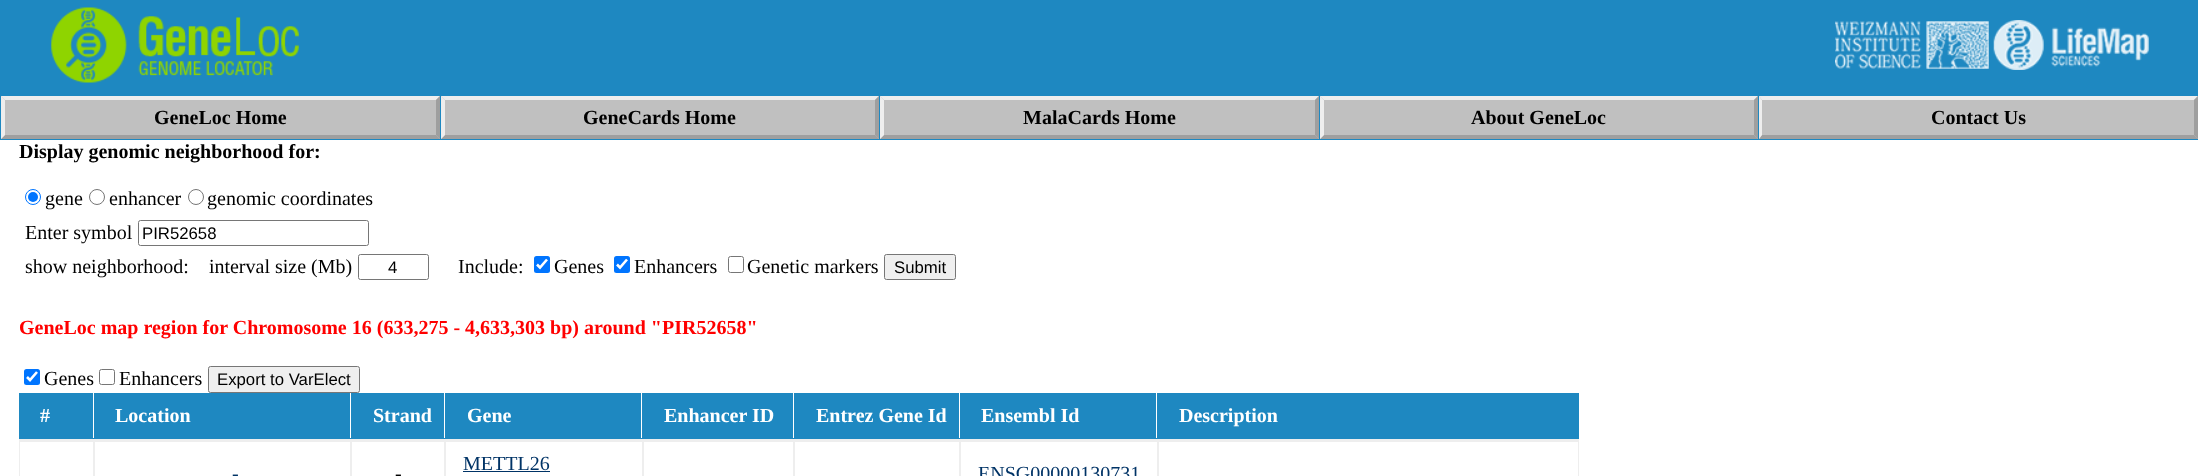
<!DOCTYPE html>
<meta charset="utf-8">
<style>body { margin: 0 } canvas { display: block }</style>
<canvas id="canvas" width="2198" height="476"></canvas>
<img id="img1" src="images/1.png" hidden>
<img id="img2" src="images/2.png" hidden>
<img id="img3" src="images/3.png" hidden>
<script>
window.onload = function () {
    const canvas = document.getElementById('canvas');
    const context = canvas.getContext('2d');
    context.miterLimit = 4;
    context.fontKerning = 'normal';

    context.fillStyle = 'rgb(255, 255, 255)';
    context.fillRect(0, 0, 2198, 476);
    context.fillStyle = 'rgb(30, 136, 193)';
    context.fillRect(0, 0, 2198, 140);
    context.drawImage(document.getElementById('img1'), 51, 7, 248, 76);
    context.drawImage(document.getElementById('img2'), 1835, 21, 154, 48);
    context.drawImage(document.getElementById('img3'), 1993, 20, 156, 50);
    context.fillStyle = 'rgb(192, 192, 192)';
    context.fillRect(1, 96, 439, 43);
    context.fillStyle = 'rgb(238, 238, 238)';
    context.beginPath();
    context.moveTo(1, 96);
    context.lineTo(440, 96);
    context.lineTo(436, 100);
    context.lineTo(5, 100);
    context.closePath();
    context.fill();
    context.fillStyle = 'rgb(159, 159, 159)';
    context.beginPath();
    context.moveTo(440, 96);
    context.lineTo(440, 139);
    context.lineTo(436, 135);
    context.lineTo(436, 100);
    context.closePath();
    context.fill();
    context.beginPath();
    context.moveTo(440, 139);
    context.lineTo(1, 139);
    context.lineTo(5, 135);
    context.lineTo(436, 135);
    context.closePath();
    context.fill();
    context.fillStyle = 'rgb(238, 238, 238)';
    context.beginPath();
    context.moveTo(1, 139);
    context.lineTo(1, 96);
    context.lineTo(5, 100);
    context.lineTo(5, 135);
    context.closePath();
    context.fill();
    context.fillStyle = 'rgb(192, 192, 192)';
    context.fillRect(441, 96, 438, 43);
    context.fillStyle = 'rgb(238, 238, 238)';
    context.beginPath();
    context.moveTo(441, 96);
    context.lineTo(879, 96);
    context.lineTo(875, 100);
    context.lineTo(445, 100);
    context.closePath();
    context.fill();
    context.fillStyle = 'rgb(159, 159, 159)';
    context.beginPath();
    context.moveTo(879, 96);
    context.lineTo(879, 139);
    context.lineTo(875, 135);
    context.lineTo(875, 100);
    context.closePath();
    context.fill();
    context.beginPath();
    context.moveTo(879, 139);
    context.lineTo(441, 139);
    context.lineTo(445, 135);
    context.lineTo(875, 135);
    context.closePath();
    context.fill();
    context.fillStyle = 'rgb(238, 238, 238)';
    context.beginPath();
    context.moveTo(441, 139);
    context.lineTo(441, 96);
    context.lineTo(445, 100);
    context.lineTo(445, 135);
    context.closePath();
    context.fill();
    context.fillStyle = 'rgb(192, 192, 192)';
    context.fillRect(880, 96, 439, 43);
    context.fillStyle = 'rgb(238, 238, 238)';
    context.beginPath();
    context.moveTo(880, 96);
    context.lineTo(1319, 96);
    context.lineTo(1315, 100);
    context.lineTo(884, 100);
    context.closePath();
    context.fill();
    context.fillStyle = 'rgb(159, 159, 159)';
    context.beginPath();
    context.moveTo(1319, 96);
    context.lineTo(1319, 139);
    context.lineTo(1315, 135);
    context.lineTo(1315, 100);
    context.closePath();
    context.fill();
    context.beginPath();
    context.moveTo(1319, 139);
    context.lineTo(880, 139);
    context.lineTo(884, 135);
    context.lineTo(1315, 135);
    context.closePath();
    context.fill();
    context.fillStyle = 'rgb(238, 238, 238)';
    context.beginPath();
    context.moveTo(880, 139);
    context.lineTo(880, 96);
    context.lineTo(884, 100);
    context.lineTo(884, 135);
    context.closePath();
    context.fill();
    context.fillStyle = 'rgb(192, 192, 192)';
    context.fillRect(1320, 96, 438, 43);
    context.fillStyle = 'rgb(238, 238, 238)';
    context.beginPath();
    context.moveTo(1320, 96);
    context.lineTo(1758, 96);
    context.lineTo(1754, 100);
    context.lineTo(1324, 100);
    context.closePath();
    context.fill();
    context.fillStyle = 'rgb(159, 159, 159)';
    context.beginPath();
    context.moveTo(1758, 96);
    context.lineTo(1758, 139);
    context.lineTo(1754, 135);
    context.lineTo(1754, 100);
    context.closePath();
    context.fill();
    context.beginPath();
    context.moveTo(1758, 139);
    context.lineTo(1320, 139);
    context.lineTo(1324, 135);
    context.lineTo(1754, 135);
    context.closePath();
    context.fill();
    context.fillStyle = 'rgb(238, 238, 238)';
    context.beginPath();
    context.moveTo(1320, 139);
    context.lineTo(1320, 96);
    context.lineTo(1324, 100);
    context.lineTo(1324, 135);
    context.closePath();
    context.fill();
    context.fillStyle = 'rgb(192, 192, 192)';
    context.fillRect(1759, 96, 439, 43);
    context.fillStyle = 'rgb(238, 238, 238)';
    context.beginPath();
    context.moveTo(1759, 96);
    context.lineTo(2198, 96);
    context.lineTo(2194, 100);
    context.lineTo(1762, 100);
    context.closePath();
    context.fill();
    context.fillStyle = 'rgb(159, 159, 159)';
    context.beginPath();
    context.moveTo(2198, 96);
    context.lineTo(2198, 139);
    context.lineTo(2194, 135);
    context.lineTo(2194, 100);
    context.closePath();
    context.fill();
    context.beginPath();
    context.moveTo(2198, 139);
    context.lineTo(1759, 139);
    context.lineTo(1762, 135);
    context.lineTo(2194, 135);
    context.closePath();
    context.fill();
    context.fillStyle = 'rgb(238, 238, 238)';
    context.beginPath();
    context.moveTo(1759, 139);
    context.lineTo(1759, 96);
    context.lineTo(1762, 100);
    context.lineTo(1762, 135);
    context.closePath();
    context.fill();
    context.beginPath();
    context.arc(33, 197, 7.5, 0, 2 * Math.PI);
    context.strokeStyle = 'rgb(0, 117, 255)';
    context.stroke();
    context.fillStyle = 'rgb(0, 117, 255)';
    context.beginPath();
    context.arc(33, 197, 5, 0, 2 * Math.PI);
    context.fill();
    context.beginPath();
    context.arc(97, 197, 7.5, 0, 2 * Math.PI);
    context.strokeStyle = 'rgb(118, 118, 118)';
    context.stroke();
    context.beginPath();
    context.arc(196, 197, 7.5, 0, 2 * Math.PI);
    context.stroke();
    context.beginPath();
    context.roundRect(138.5, 220.5, 230, 25, 2);
    context.stroke();
    context.beginPath();
    context.roundRect(358.5, 254.5, 70, 25, 2);
    context.stroke();
    context.beginPath();
    context.roundRect(534, 256, 16, 17, 2.5);
    context.fill();
    context.beginPath();
    context.moveTo(537, 264.5);
    context.lineTo(540, 267.5);
    context.lineTo(547, 259.5);
    context.strokeStyle = 'rgb(255, 255, 255)';
    context.lineWidth = 2.6;
    context.stroke();
    context.beginPath();
    context.roundRect(614, 256, 16, 17, 2.5);
    context.fill();
    context.beginPath();
    context.moveTo(617, 264.5);
    context.lineTo(620, 267.5);
    context.lineTo(627, 259.5);
    context.stroke();
    context.beginPath();
    context.roundRect(728.5, 256.5, 15, 16, 2);
    context.strokeStyle = 'rgb(118, 118, 118)';
    context.lineWidth = 1;
    context.stroke();
    context.fillStyle = 'rgb(239, 239, 239)';
    context.beginPath();
    context.roundRect(884.5, 254.5, 71, 25, 2);
    context.fill();
    context.stroke();
    context.fillStyle = 'rgb(0, 117, 255)';
    context.beginPath();
    context.roundRect(24, 369, 16, 16, 2.5);
    context.fill();
    context.beginPath();
    context.moveTo(27, 377);
    context.lineTo(30, 380);
    context.lineTo(37, 372);
    context.strokeStyle = 'rgb(255, 255, 255)';
    context.lineWidth = 2.6;
    context.stroke();
    context.beginPath();
    context.roundRect(99.5, 369.5, 15, 15, 2);
    context.strokeStyle = 'rgb(118, 118, 118)';
    context.lineWidth = 1;
    context.stroke();
    context.fillStyle = 'rgb(239, 239, 239)';
    context.beginPath();
    context.roundRect(208.5, 366.5, 151, 26, 2);
    context.fill();
    context.stroke();
    context.fillStyle = 'rgb(30, 136, 193)';
    context.fillRect(19, 393, 1560, 46);
    context.fillStyle = 'rgb(238, 238, 238)';
    context.fillRect(19, 439, 1560, 2);
    context.fillStyle = 'rgb(255, 255, 255)';
    context.fillRect(93, 393, 1, 45);
    context.fillRect(350, 393, 1, 45);
    context.fillRect(444, 393, 1, 45);
    context.fillRect(641, 393, 1, 45);
    context.fillRect(793, 393, 1, 45);
    context.fillRect(959, 393, 1, 45);
    context.fillRect(1156, 393, 1, 45);
    context.strokeStyle = 'rgb(238, 238, 238)';
    context.strokeRect(19.5, 441.5, 74, 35);
    context.strokeRect(94.5, 441.5, 256, 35);
    context.strokeRect(351.5, 441.5, 93, 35);
    context.strokeRect(445.5, 441.5, 197, 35);
    context.fillStyle = 'rgb(0, 51, 102)';
    context.fillRect(463, 471, 87, 1);
    context.strokeRect(643.5, 441.5, 150, 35);
    context.strokeRect(794.5, 441.5, 165, 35);
    context.strokeRect(960.5, 441.5, 197, 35);
    context.strokeRect(1158.5, 441.5, 420, 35);
    context.font = 'bold 20px Liberation Serif';
    context.fillStyle = 'rgb(0, 0, 0)';
    context.fillText('GeneLoc Home', 154, 124);
    context.fillText('GeneCards Home', 583, 124);
    context.fillText('MalaCards Home', 1023, 124);
    context.fillText('About GeneLoc', 1471, 124);
    context.fillText('Contact Us', 1931, 124);
    context.fillText('Display genomic neighborhood for:', 19, 158);
    context.font = '20px Liberation Serif';
    context.fillText('gene', 45, 205);
    context.fillText('enhancer', 109, 205);
    context.fillText('genomic coordinates', 207, 205);
    context.fillText('Enter symbol', 25, 239);
    context.font = '16.75px Liberation Sans';
    context.fillText('PIR52658', 142, 239);
    context.font = '20px Liberation Serif';
    context.fillText('show neighborhood:    interval size (Mb)', 25, 273);
    context.font = '16.75px Liberation Sans';
    context.fillText('4', 388, 273);
    context.font = '20px Liberation Serif';
    context.fillText('Include:', 458, 273);
    context.fillText('Genes', 554, 273);
    context.fillText('Enhancers', 634, 273);
    context.fillText('Genetic markers', 747, 273);
    context.font = '16.75px Liberation Sans';
    context.fillText('Submit', 894, 273);
    context.font = 'bold 20px Liberation Serif';
    context.fillStyle = 'rgb(255, 0, 0)';
    context.fillText('GeneLoc map region for Chromosome 16 (633,275 - 4,633,303 bp) around "PIR52658"', 19, 334);
    context.font = '20px Liberation Serif';
    context.fillStyle = 'rgb(0, 0, 0)';
    context.fillText('Genes', 44, 385);
    context.fillText('Enhancers', 119, 385);
    context.font = '16.75px Liberation Sans';
    context.fillText('Export to VarElect', 217, 385);
    context.font = 'bold 20px Liberation Serif';
    context.fillStyle = 'rgb(255, 255, 255)';
    context.fillText('#', 40, 422);
    context.fillText('Location', 115, 422);
    context.fillText('Strand', 373, 422);
    context.fillText('Gene', 467, 422);
    context.fillText('Enhancer ID', 664, 422);
    context.fillText('Entrez Gene Id', 816, 422);
    context.fillText('Ensembl Id', 981, 422);
    context.fillText('Description', 1179, 422);
    context.font = '20px Liberation Serif';
    context.fillStyle = 'rgb(0, 51, 102)';
    context.fillText('-', 232, 480);
    context.fillStyle = 'rgb(0, 0, 0)';
    context.fillText('-', 395, 480);
    context.fillStyle = 'rgb(0, 51, 102)';
    context.fillText('METTL26', 463, 470);
    context.fillText('ENSG00000130731', 978, 480);
};
</script>
